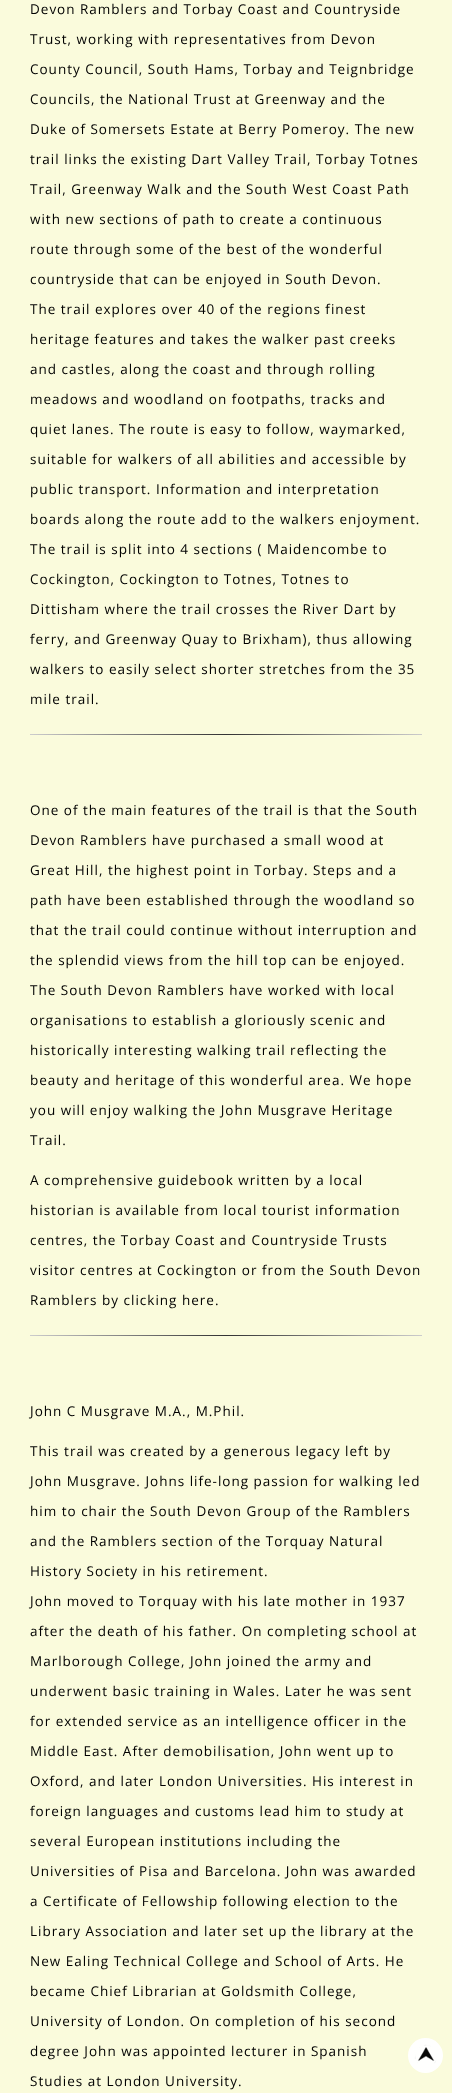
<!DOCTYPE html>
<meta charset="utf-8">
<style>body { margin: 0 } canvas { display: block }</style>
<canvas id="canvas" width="452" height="2093"></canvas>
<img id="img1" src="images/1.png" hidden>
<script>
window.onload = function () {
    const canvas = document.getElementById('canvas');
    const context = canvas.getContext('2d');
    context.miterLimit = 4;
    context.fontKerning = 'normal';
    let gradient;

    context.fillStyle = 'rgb(250, 251, 220)';
    context.fillRect(0, 0, 452, 2093);
    gradient = context.createLinearGradient(30, 735, 422, 735);
    gradient.addColorStop(0, 'rgb(204, 204, 204)');
    gradient.addColorStop(0.5, 'rgb(51, 51, 51)');
    gradient.addColorStop(1, 'rgb(204, 204, 204)');
    context.fillStyle = gradient;
    context.fillRect(30, 734, 392, 1);
    gradient = context.createLinearGradient(30, 1336, 422, 1336);
    gradient.addColorStop(0, 'rgb(204, 204, 204)');
    gradient.addColorStop(0.5, 'rgb(51, 51, 51)');
    gradient.addColorStop(1, 'rgb(204, 204, 204)');
    context.fillStyle = gradient;
    context.fillRect(30, 1335, 392, 1);
    context.drawImage(document.getElementById('img1'), 408, 2038, 35, 35);
    context.letterSpacing = '1px';
    context.font = '13.5px Open Sans';
    context.fillStyle = 'rgb(0, 0, 0)';
    context.fillText('Devon Ramblers and Torbay Coast and Countryside', 30, 14);
    context.fillText('Trust, working with representatives from Devon', 30, 44);
    context.fillText('County Council, South Hams, Torbay and Teignbridge', 30, 74);
    context.fillText('Councils, the National Trust at Greenway and the', 30, 104);
    context.fillText('Duke of Somersets Estate at Berry Pomeroy. The new', 30, 134);
    context.fillText('trail links the existing Dart Valley Trail, Torbay Totnes', 30, 164);
    context.fillText('Trail, Greenway Walk and the South West Coast Path', 30, 194);
    context.fillText('with new sections of path to create a continuous', 30, 224);
    context.fillText('route through some of the best of the wonderful', 30, 254);
    context.fillText('countryside that can be enjoyed in South Devon.', 30, 284);
    context.fillText('The trail explores over 40 of the regions finest', 30, 314);
    context.fillText('heritage features and takes the walker past creeks', 30, 344);
    context.fillText('and castles, along the coast and through rolling', 30, 374);
    context.fillText('meadows and woodland on footpaths, tracks and', 30, 404);
    context.fillText('quiet lanes. The route is easy to follow, waymarked,', 30, 434);
    context.fillText('suitable for walkers of all abilities and accessible by', 30, 464);
    context.fillText('public transport. Information and interpretation', 30, 494);
    context.fillText('boards along the route add to the walkers enjoyment.', 30, 524);
    context.fillText('The trail is split into 4 sections ( Maidencombe to', 30, 554);
    context.fillText('Cockington, Cockington to Totnes, Totnes to', 30, 584);
    context.fillText('Dittisham where the trail crosses the River Dart by', 30, 614);
    context.fillText('ferry, and Greenway Quay to Brixham), thus allowing', 30, 644);
    context.fillText('walkers to easily select shorter stretches from the 35', 30, 674);
    context.fillText('mile trail.', 30, 704);
    context.fillText('One of the main features of the trail is that the South', 30, 815);
    context.fillText('Devon Ramblers have purchased a small wood at', 30, 845);
    context.fillText('Great Hill, the highest point in Torbay. Steps and a', 30, 875);
    context.fillText('path have been established through the woodland so', 30, 905);
    context.fillText('that the trail could continue without interruption and', 30, 935);
    context.fillText('the splendid views from the hill top can be enjoyed.', 30, 965);
    context.fillText('The South Devon Ramblers have worked with local', 30, 995);
    context.fillText('organisations to establish a gloriously scenic and', 30, 1025);
    context.fillText('historically interesting walking trail reflecting the', 30, 1055);
    context.fillText('beauty and heritage of this wonderful area. We hope', 30, 1085);
    context.fillText('you will enjoy walking the John Musgrave Heritage', 30, 1115);
    context.fillText('Trail.', 30, 1145);
    context.fillText('A comprehensive guidebook written by a local', 30, 1185);
    context.fillText('historian is available from local tourist information', 30, 1215);
    context.fillText('centres, the Torbay Coast and Countryside Trusts', 30, 1245);
    context.fillText('visitor centres at Cockington or from the South Devon', 30, 1275);
    context.fillText('Ramblers by clicking here.', 30, 1305);
    context.fillText('John C Musgrave M.A., M.Phil.', 30, 1416);
    context.fillText('This trail was created by a generous legacy left by', 30, 1456);
    context.fillText('John Musgrave. Johns life-long passion for walking led', 30, 1486);
    context.fillText('him to chair the South Devon Group of the Ramblers', 30, 1516);
    context.fillText('and the Ramblers section of the Torquay Natural', 30, 1546);
    context.fillText('History Society in his retirement.', 30, 1576);
    context.fillText('John moved to Torquay with his late mother in 1937', 30, 1606);
    context.fillText('after the death of his father. On completing school at', 30, 1636);
    context.fillText('Marlborough College, John joined the army and', 30, 1666);
    context.fillText('underwent basic training in Wales. Later he was sent', 30, 1696);
    context.fillText('for extended service as an intelligence officer in the', 30, 1726);
    context.fillText('Middle East. After demobilisation, John went up to', 30, 1756);
    context.fillText('Oxford, and later London Universities. His interest in', 30, 1786);
    context.fillText('foreign languages and customs lead him to study at', 30, 1816);
    context.fillText('several European institutions including the', 30, 1846);
    context.fillText('Universities of Pisa and Barcelona. John was awarded', 30, 1876);
    context.fillText('a Certificate of Fellowship following election to the', 30, 1906);
    context.fillText('Library Association and later set up the library at the', 30, 1936);
    context.fillText('New Ealing Technical College and School of Arts. He', 30, 1966);
    context.fillText('became Chief Librarian at Goldsmith College,', 30, 1996);
    context.fillText('University of London. On completion of his second', 30, 2026);
    context.fillText('degree John was appointed lecturer in Spanish', 30, 2056);
    context.fillText('Studies at London University.', 30, 2086);
};
</script>
